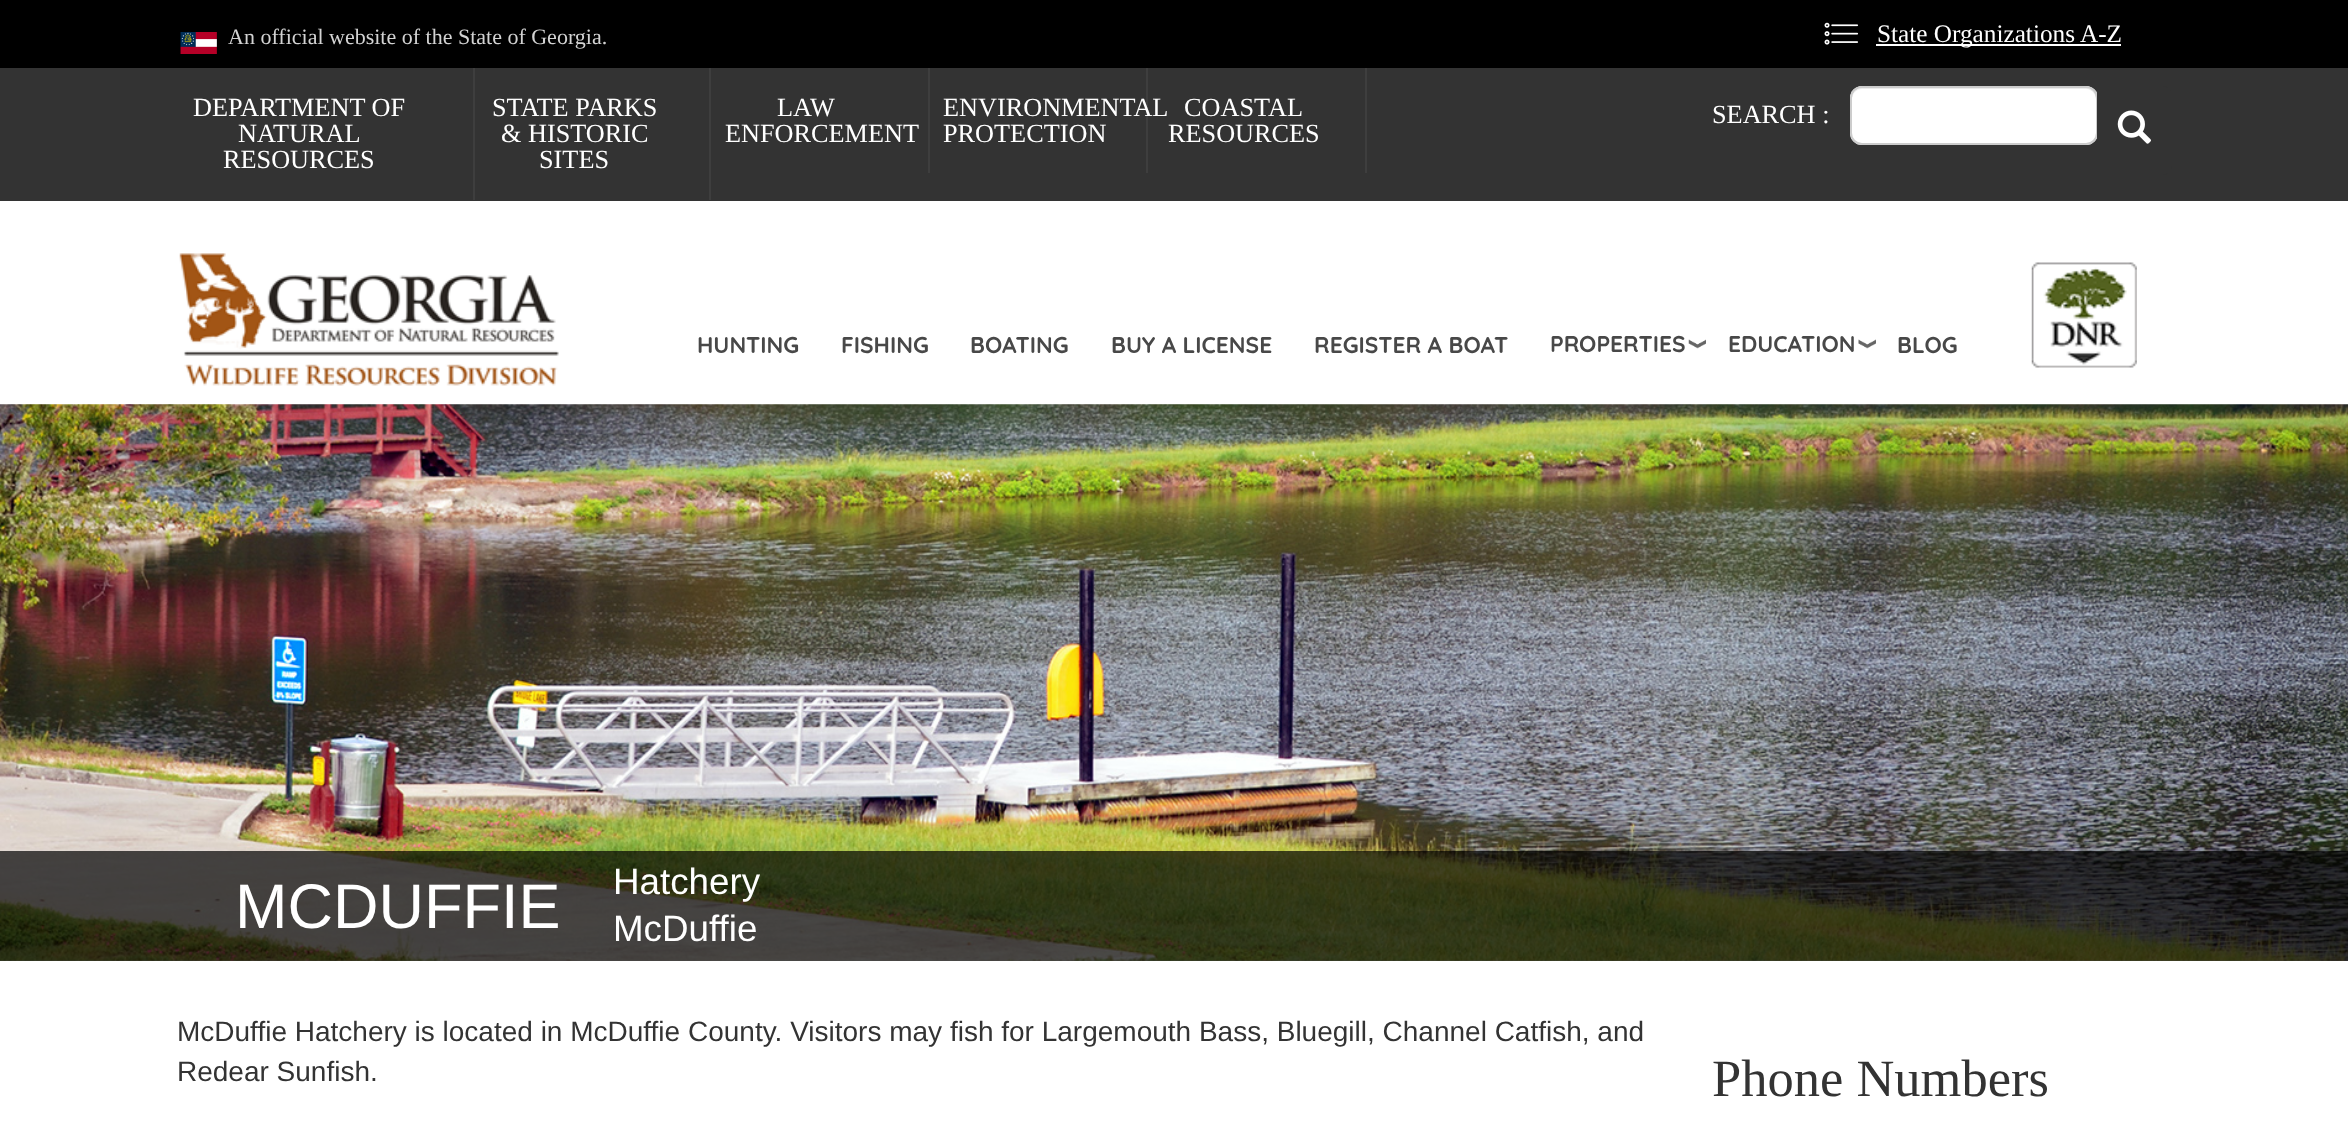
<!DOCTYPE html>
<meta charset="utf-8">
<style>body { margin: 0 } canvas { display: block }</style>
<canvas id="canvas" width="2348" height="1127"></canvas>
<img id="img1" src="images/1.png" hidden>
<img id="img2" src="images/2.png" hidden>
<img id="img3" src="images/3.png" hidden>
<img id="img4" src="images/4.png" hidden>
<img id="img5" src="images/5.png" hidden>
<img id="img6" src="images/6.png" hidden>
<img id="img7" src="images/7.png" hidden>
<img id="img8" src="images/8.png" hidden>
<script>
window.onload = function () {
    const canvas = document.getElementById('canvas');
    const context = canvas.getContext('2d');
    context.miterLimit = 4;
    context.fontKerning = 'normal';

    context.fillStyle = 'rgb(255, 255, 255)';
    context.fillRect(0, 0, 2348, 1127);
    context.fillStyle = 'rgb(0, 0, 0)';
    context.fillRect(0, 0, 2348, 68);
    context.drawImage(document.getElementById('img1'), 180, 32, 37, 22);
    context.drawImage(document.getElementById('img2'), 1824, 22, 35, 23);
    context.fillStyle = 'rgb(255, 255, 255)';
    context.fillRect(1876, 44, 245, 2);
    context.fillStyle = 'rgb(51, 51, 51)';
    context.fillRect(0, 68, 2348, 133);
    context.fillStyle = 'rgb(62, 62, 62)';
    context.fillRect(473, 68, 2, 132);
    context.fillRect(709, 68, 2, 132);
    context.fillRect(928, 68, 2, 105);
    context.fillRect(1146, 68, 2, 105);
    context.fillRect(1365, 68, 2, 105);
    context.fillStyle = 'rgb(255, 255, 255)';
    context.beginPath();
    context.roundRect(1850, 86, 248, 59, 12);
    context.fill();
    context.fillStyle = 'rgb(236, 236, 236)';
    context.beginPath();
    context.moveTo(1862, 89);
    context.lineTo(2086, 89);
    context.bezierCurveTo(2092, 89, 2096, 94, 2096, 100);
    context.lineTo(2096, 135);
    context.lineTo(2095, 139);
    context.bezierCurveTo(2096, 137, 2097, 135, 2097, 133);
    context.lineTo(2097, 99);
    context.bezierCurveTo(2097, 93, 2092, 88, 2086, 88);
    context.lineTo(1863, 88);
    context.bezierCurveTo(1857, 88, 1852, 93, 1852, 99);
    context.lineTo(1852, 100);
    context.bezierCurveTo(1852, 94, 1856, 89, 1862, 89);
    context.closePath();
    context.fill();
    context.beginPath();
    context.roundRect(1851, 87, 246, 57, 11);
    context.strokeStyle = 'rgb(204, 204, 204)';
    context.lineWidth = 2;
    context.stroke();
    context.fillStyle = 'rgb(51, 51, 51)';
    context.beginPath();
    context.roundRect(2097, 86, 75, 89, [0, 9, 9, 0]);
    context.fill();
    context.drawImage(document.getElementById('img3'), 2117, 110, 34, 34);
    context.drawImage(document.getElementById('img4'), 179, 253, 380, 133);
    context.drawImage(document.getElementById('img5'), 1688, 339, 18, 10);
    context.drawImage(document.getElementById('img6'), 1858, 339, 18, 10);
    context.drawImage(document.getElementById('img7'), 2031, 262, 106, 106);
    context.drawImage(document.getElementById('img8'), 0, 404, 2348, 557);
    context.fillStyle = 'rgba(0, 0, 0, 0.7)';
    context.fillRect(0, 851, 2348, 110);
    context.font = '22px Liberation Serif';
    context.fillStyle = 'rgb(211, 211, 211)';
    context.fillText('An official website of the State of Georgia.', 228, 44);
    context.font = '25.25px Liberation Serif';
    context.fillStyle = 'rgb(255, 255, 255)';
    context.fillText('State Organizations A-Z', 1877, 42);
    context.font = '26.25px Liberation Serif';
    context.fillText('DEPARTMENT OF', 193, 116);
    context.fillText('NATURAL', 238, 142);
    context.fillText('RESOURCES', 223, 168);
    context.fillText('STATE PARKS', 492, 116);
    context.fillText('& HISTORIC', 501, 142);
    context.fillText('SITES', 539, 168);
    context.fillText('LAW', 777, 116);
    context.fillText('ENFORCEMENT', 725, 142);
    context.fillText('ENVIRONMENTAL', 943, 116);
    context.fillText('PROTECTION', 943, 142);
    context.fillText('COASTAL', 1184, 116);
    context.fillText('RESOURCES', 1168, 142);
    context.fillText('SEARCH :', 1712, 123);
    context.font = 'bold 22.75px Quicksand';
    context.fillStyle = 'rgb(72, 72, 72)';
    context.fillText('HUNTING', 697, 353);
    context.fillText('FISHING', 841, 353);
    context.fillText('BOATING', 970, 353);
    context.fillText('BUY A LICENSE', 1111, 353);
    context.fillText('REGISTER A BOAT', 1314, 353);
    context.fillText('PROPERTIES', 1550, 352);
    context.fillText('EDUCATION', 1728, 352);
    context.fillText('BLOG', 1897, 353);
    context.font = '63px Liberation Sans';
    context.fillStyle = 'rgb(255, 255, 255)';
    context.fillText('MCDUFFIE', 235, 928);
    context.font = '36.75px Liberation Sans';
    context.fillText('Hatchery', 613, 894);
    context.fillText('McDuffie', 613, 941);
    context.font = '28px Liberation Sans';
    context.fillStyle = 'rgb(51, 51, 51)';
    context.fillText('McDuffie Hatchery is located in McDuffie County. Visitors may fish for Largemouth Bass, Bluegill, Channel Catfish, and', 177, 1041);
    context.fillText('Redear Sunfish.', 177, 1081);
    context.font = '52.5px Liberation Serif';
    context.fillText('Phone Numbers', 1712, 1096);
};
</script>
